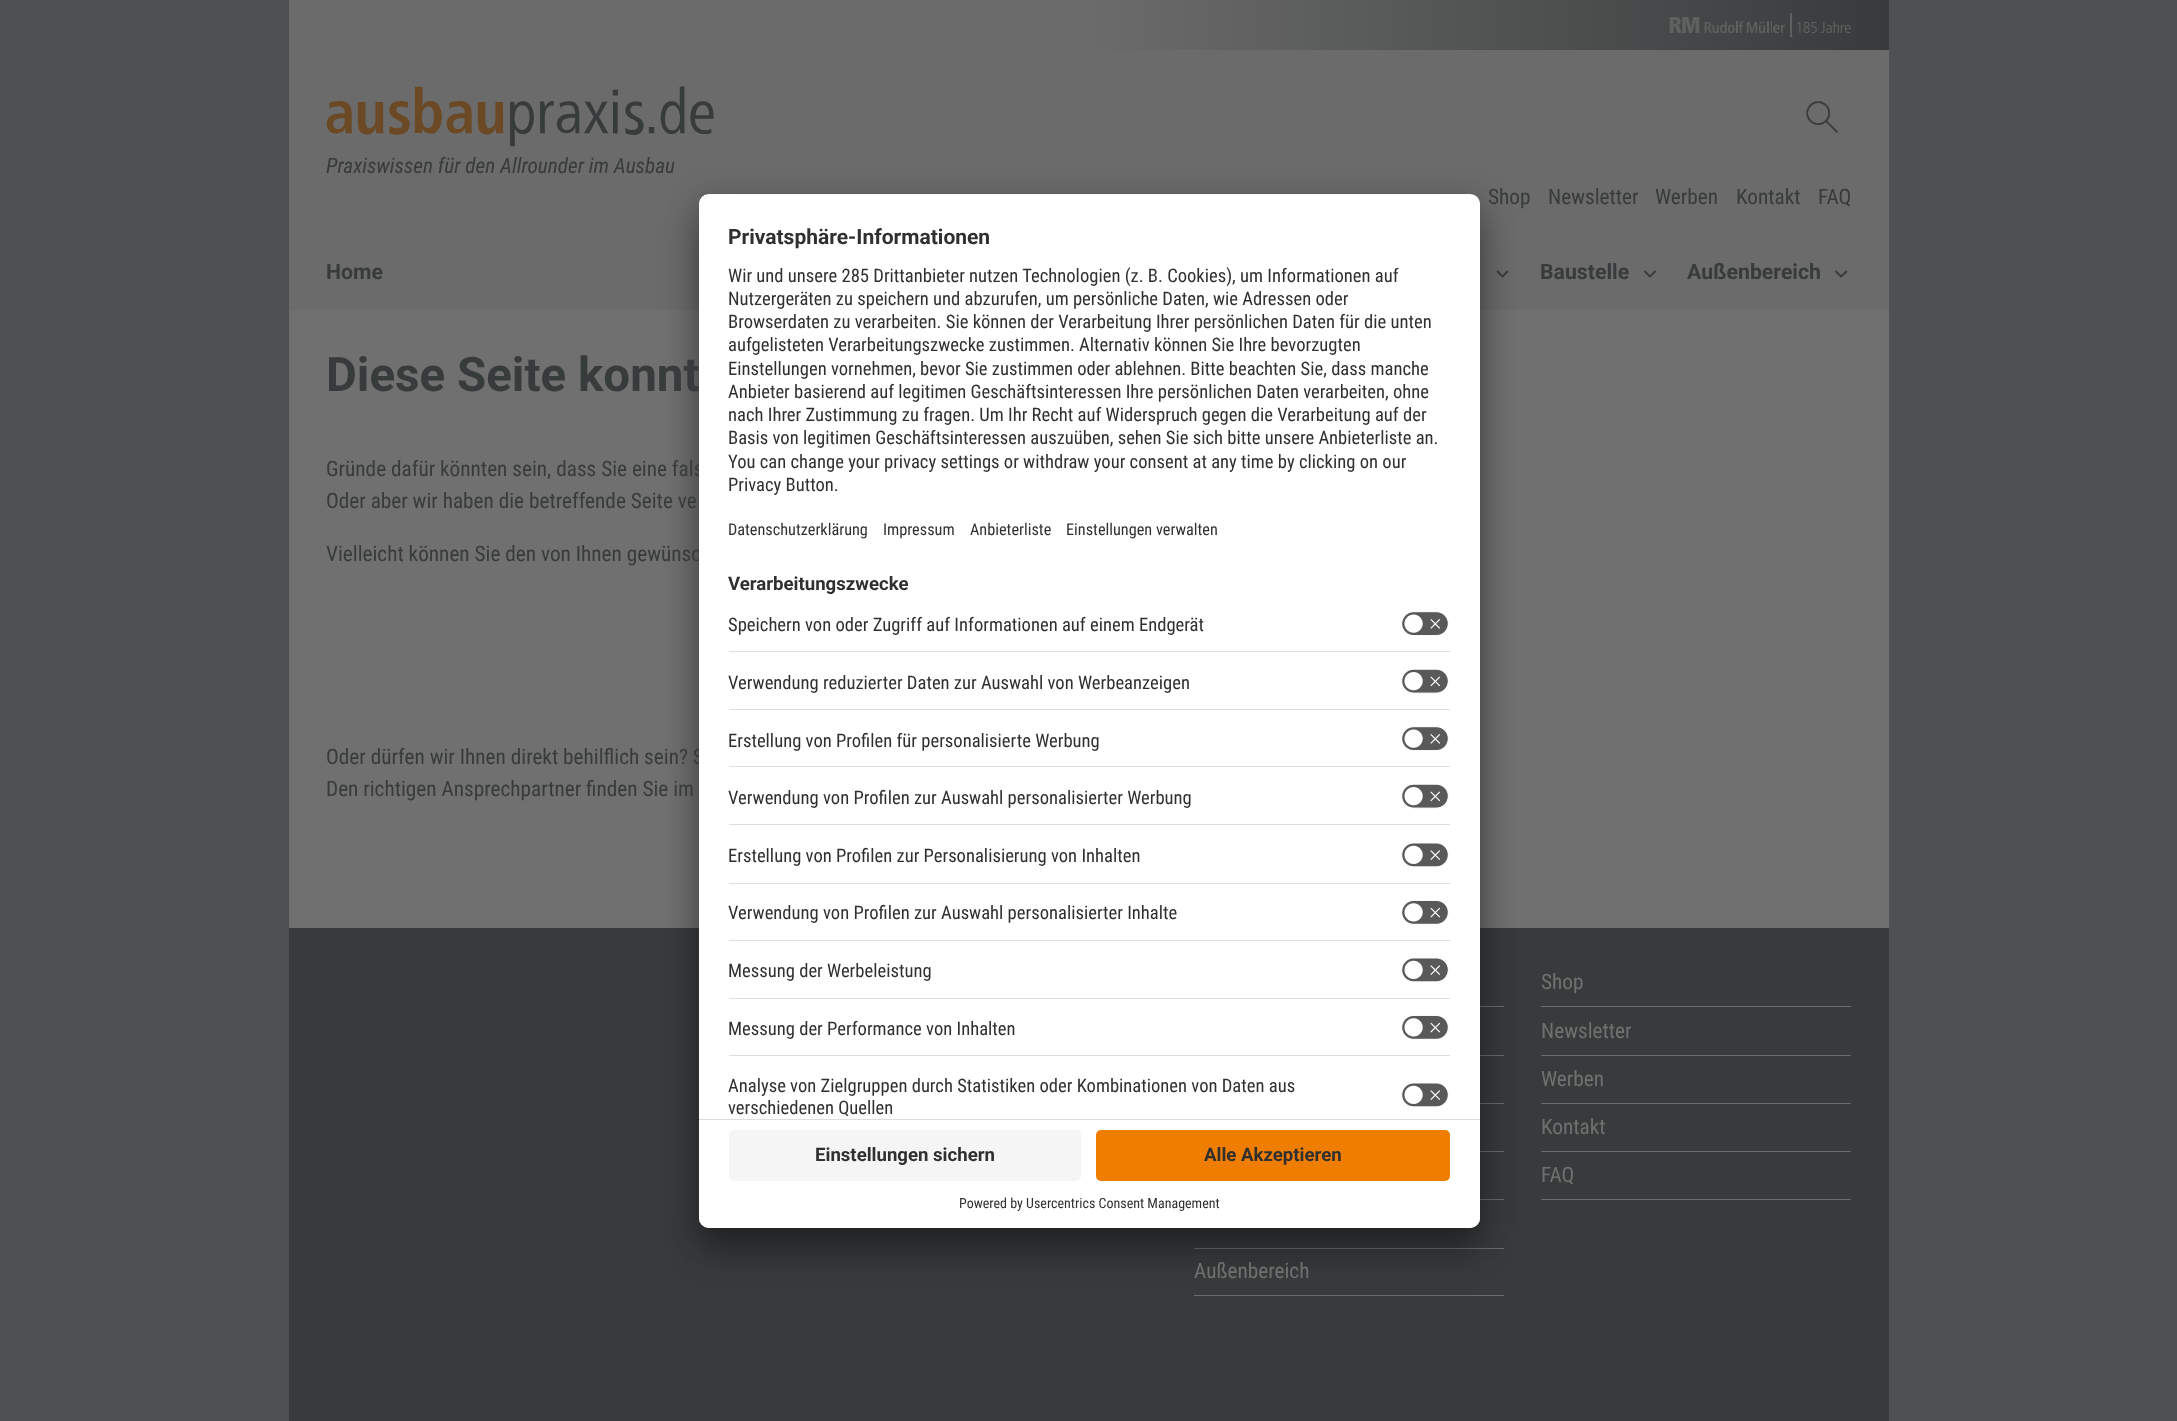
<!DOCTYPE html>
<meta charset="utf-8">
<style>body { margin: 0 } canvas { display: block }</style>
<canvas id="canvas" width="2177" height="1421"></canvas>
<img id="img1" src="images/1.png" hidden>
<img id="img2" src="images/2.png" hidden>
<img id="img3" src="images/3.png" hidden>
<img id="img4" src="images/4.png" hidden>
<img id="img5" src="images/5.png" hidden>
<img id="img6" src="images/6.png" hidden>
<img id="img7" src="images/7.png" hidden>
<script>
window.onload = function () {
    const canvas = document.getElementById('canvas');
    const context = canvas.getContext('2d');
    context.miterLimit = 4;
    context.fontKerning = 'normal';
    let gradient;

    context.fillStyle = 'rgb(78, 81, 82)';
    context.fillRect(0, 0, 2177, 1421);
    context.fillStyle = 'rgb(107, 107, 107)';
    context.fillRect(289, 50, 1600, 260);
    gradient = context.createLinearGradient(289, 25, 1889, 25);
    gradient.addColorStop(0, 'rgb(107, 107, 107)');
    gradient.addColorStop(0.5, 'rgb(107, 107, 107)');
    gradient.addColorStop(1, 'rgb(56, 59, 60)');
    context.fillStyle = gradient;
    context.fillRect(289, 0, 1600, 50);
    context.drawImage(document.getElementById('img1'), 1669, 13, 182, 24);
    context.drawImage(document.getElementById('img2'), 326, 86, 388, 61);
    context.drawImage(document.getElementById('img3'), 1806, 101, 32, 32);
    context.beginPath();
    context.moveTo(1497, 271);
    context.lineTo(1502.5, 276.5);
    context.lineTo(1508, 271);
    context.strokeStyle = 'rgb(56, 59, 60)';
    context.lineWidth = 1.9;
    context.stroke();
    context.beginPath();
    context.moveTo(1644.5, 271);
    context.lineTo(1650, 276.5);
    context.lineTo(1655.5, 271);
    context.stroke();
    context.beginPath();
    context.moveTo(1835.5, 271);
    context.lineTo(1841, 276.5);
    context.lineTo(1847, 271);
    context.stroke();
    context.fillStyle = 'rgb(112, 112, 112)';
    context.fillRect(289, 310, 1600, 618);
    context.fillStyle = 'rgb(56, 59, 60)';
    context.fillRect(289, 928, 1600, 493);
    context.fillStyle = 'rgb(107, 107, 107)';
    context.fillRect(1541, 1006, 310, 1);
    context.fillRect(1541, 1055, 310, 1);
    context.fillRect(1541, 1103, 310, 1);
    context.fillRect(1541, 1151, 310, 1);
    context.fillRect(1541, 1199, 310, 1);
    context.fillRect(1480, 1006, 24, 1);
    context.fillRect(1480, 1055, 24, 1);
    context.fillRect(1480, 1103, 24, 1);
    context.fillRect(1480, 1151, 24, 1);
    context.fillRect(1480, 1199, 24, 1);
    context.fillRect(1194, 1248, 310, 1);
    context.fillRect(1194, 1295, 310, 1);
    context.fillStyle = 'rgba(0, 0, 0, 0.3)';
    context.filter = 'blur(17.5px)';
    context.beginPath();
    context.roundRect(699, 219, 781, 1034, 10);
    context.fill();
    context.filter = 'none';
    context.fillStyle = 'rgba(0, 0, 0, 0.22)';
    context.filter = 'blur(16px)';
    context.beginPath();
    context.roundRect(699, 200, 781, 1034, 10);
    context.fill();
    context.filter = 'none';
    context.font = 'italic 21.25px Roboto Condensed';
    context.fillStyle = 'rgb(56, 59, 60)';
    context.fillText('Praxiswissen für den Allrounder im Ausbau', 326, 173);
    context.font = '21.25px Roboto Condensed';
    context.fillText('Shop', 1488, 204);
    context.fillText('Newsletter', 1548, 204);
    context.fillText('Werben', 1655, 204);
    context.fillText('Kontakt', 1736, 204);
    context.fillText('FAQ', 1818, 204);
    context.font = 'bold 21.25px Roboto';
    context.fillText('Home', 326, 279);
    context.fillText('Baustelle', 1540, 279);
    context.fillText('Außenbereich', 1687, 279);
    context.font = 'bold 47.5px Roboto';
    context.fillText('Diese Seite konnt', 326, 391);
    context.font = '21.25px Roboto Condensed';
    context.fillText('Gründe dafür könnten sein, dass Sie eine fals', 326, 476);
    context.fillText('Oder aber wir haben die betreffende Seite ve', 326, 508);
    context.fillText('Vielleicht können Sie den von Ihnen gewünsc', 326, 561);
    context.fillText('Oder dürfen wir Ihnen direkt behilflich sein? S', 326, 764);
    context.fillText('Den richtigen Ansprechpartner finden Sie im', 326, 796);
    context.fillStyle = 'rgb(112, 112, 112)';
    context.fillText('Shop', 1541, 989);
    context.fillText('Newsletter', 1541, 1038);
    context.fillText('Werben', 1541, 1086);
    context.fillText('Kontakt', 1541, 1134);
    context.fillText('FAQ', 1541, 1182);
    context.fillText('Außenbereich', 1194, 1278);
    context.fillStyle = 'rgb(255, 255, 255)';
    context.beginPath();
    context.roundRect(699, 194, 781, 1034, 10);
    context.fill();
    context.save();
    context.beginPath();
    context.roundRect(699, 194, 781, 1034, 10);
    context.clip();
    context.beginPath();
    context.roundRect(699, 194, 781, 925, [10, 10, 0, 0]);
    context.clip();
    context.fillRect(699, 195, 781, 924);
    context.fillRect(699, 195, 781, 364);
    context.restore();
    context.font = 'bold 21px Roboto';
    context.fillStyle = 'rgb(48, 48, 48)';
    context.fillText('Privatsphäre-Informationen', 728, 244);
    context.font = '18.6px Roboto Condensed';
    context.fillText('Wir und unsere 285 Drittanbieter nutzen Technologien (z. B. Cookies), um Informationen auf', 728, 282);
    context.fillText('Nutzergeräten zu speichern und abzurufen, um persönliche Daten, wie Adressen oder', 728, 305);
    context.fillText('Browserdaten zu verarbeiten. Sie können der Verarbeitung Ihrer persönlichen Daten für die unten', 728, 328);
    context.fillText('aufgelisteten Verarbeitungszwecke zustimmen. Alternativ können Sie Ihre bevorzugten', 728, 351);
    context.fillText('Einstellungen vornehmen, bevor Sie zustimmen oder ablehnen. Bitte beachten Sie, dass manche', 728, 375);
    context.fillText('Anbieter basierend auf legitimen Geschäftsinteressen Ihre persönlichen Daten verarbeiten, ohne', 728, 398);
    context.fillText('nach Ihrer Zustimmung zu fragen. Um Ihr Recht auf Widerspruch gegen die Verarbeitung auf der', 728, 421);
    context.fillText('Basis von legitimen Geschäftsinteressen auszuüben, sehen Sie sich bitte unsere Anbieterliste an.', 728, 444);
    context.fillText('You can change your privacy settings or withdraw your consent at any time by clicking on our', 728, 468);
    context.fillText('Privacy Button.', 728, 491);
    context.font = '16.25px Roboto Condensed';
    context.fillText('Datenschutzerklärung', 728, 535);
    context.fillText('Impressum', 883, 535);
    context.fillText('Anbieterliste', 970, 535);
    context.fillText('Einstellungen verwalten', 1066, 535);
    context.font = 'bold 18.6px Roboto';
    context.fillText('Verarbeitungszwecke', 728, 590);
    context.fillStyle = 'rgb(221, 221, 221)';
    context.fillRect(729, 651, 721, 1);
    context.font = '18.6px Roboto Condensed';
    context.fillStyle = 'rgb(48, 48, 48)';
    context.fillText('Speichern von oder Zugriff auf Informationen auf einem Endgerät', 728, 631);
    context.drawImage(document.getElementById('img4'), 1401, 611, 48, 25);
    context.fillStyle = 'rgb(221, 221, 221)';
    context.fillRect(729, 709, 721, 1);
    context.fillStyle = 'rgb(48, 48, 48)';
    context.fillText('Verwendung reduzierter Daten zur Auswahl von Werbeanzeigen', 728, 689);
    context.drawImage(document.getElementById('img5'), 1401, 669, 48, 25);
    context.fillStyle = 'rgb(221, 221, 221)';
    context.fillRect(729, 766, 721, 1);
    context.fillStyle = 'rgb(48, 48, 48)';
    context.fillText('Erstellung von Profilen für personalisierte Werbung', 728, 747);
    context.drawImage(document.getElementById('img4'), 1401, 726, 48, 25);
    context.fillStyle = 'rgb(221, 221, 221)';
    context.fillRect(729, 824, 721, 1);
    context.fillStyle = 'rgb(48, 48, 48)';
    context.fillText('Verwendung von Profilen zur Auswahl personalisierter Werbung', 728, 804);
    context.drawImage(document.getElementById('img5'), 1401, 784, 48, 25);
    context.fillStyle = 'rgb(221, 221, 221)';
    context.fillRect(729, 883, 721, 1);
    context.fillStyle = 'rgb(48, 48, 48)';
    context.fillText('Erstellung von Profilen zur Personalisierung von Inhalten', 728, 862);
    context.drawImage(document.getElementById('img6'), 1401, 843, 48, 24);
    context.fillStyle = 'rgb(221, 221, 221)';
    context.fillRect(729, 940, 721, 1);
    context.fillStyle = 'rgb(48, 48, 48)';
    context.fillText('Verwendung von Profilen zur Auswahl personalisierter Inhalte', 728, 919);
    context.drawImage(document.getElementById('img7'), 1401, 900, 48, 25);
    context.fillStyle = 'rgb(221, 221, 221)';
    context.fillRect(729, 998, 721, 1);
    context.fillStyle = 'rgb(48, 48, 48)';
    context.fillText('Messung der Werbeleistung', 728, 977);
    context.drawImage(document.getElementById('img6'), 1401, 958, 48, 24);
    context.fillStyle = 'rgb(221, 221, 221)';
    context.fillRect(729, 1055, 721, 1);
    context.fillStyle = 'rgb(48, 48, 48)';
    context.fillText('Messung der Performance von Inhalten', 728, 1035);
    context.drawImage(document.getElementById('img7'), 1401, 1015, 48, 25);
    context.fillText('Analyse von Zielgruppen durch Statistiken oder Kombinationen von Daten aus', 728, 1092);
    context.fillText('verschiedenen Quellen', 728, 1114);
    context.drawImage(document.getElementById('img6'), 1401, 1083, 48, 24);
    context.fillStyle = 'rgb(255, 255, 255)';
    context.beginPath();
    context.roundRect(699, 1119, 781, 109, [0, 0, 10, 10]);
    context.fill();
    context.fillStyle = 'rgb(221, 221, 221)';
    context.fillRect(699, 1119, 781, 1);
    context.fillStyle = 'rgb(245, 245, 245)';
    context.beginPath();
    context.roundRect(729, 1130, 352, 51, 5);
    context.fill();
    context.font = 'bold 18.6px Roboto';
    context.fillStyle = 'rgb(48, 48, 48)';
    context.fillText('Einstellungen sichern', 815, 1161);
    context.fillStyle = 'rgb(239, 125, 0)';
    context.beginPath();
    context.roundRect(1096, 1130, 354, 51, 5);
    context.fill();
    context.fillStyle = 'rgb(48, 48, 48)';
    context.fillText('Alle Akzeptieren', 1204, 1161);
    context.font = '14px Roboto Condensed';
    context.fillText('Powered by Usercentrics Consent Management', 959, 1208);
};
</script>
